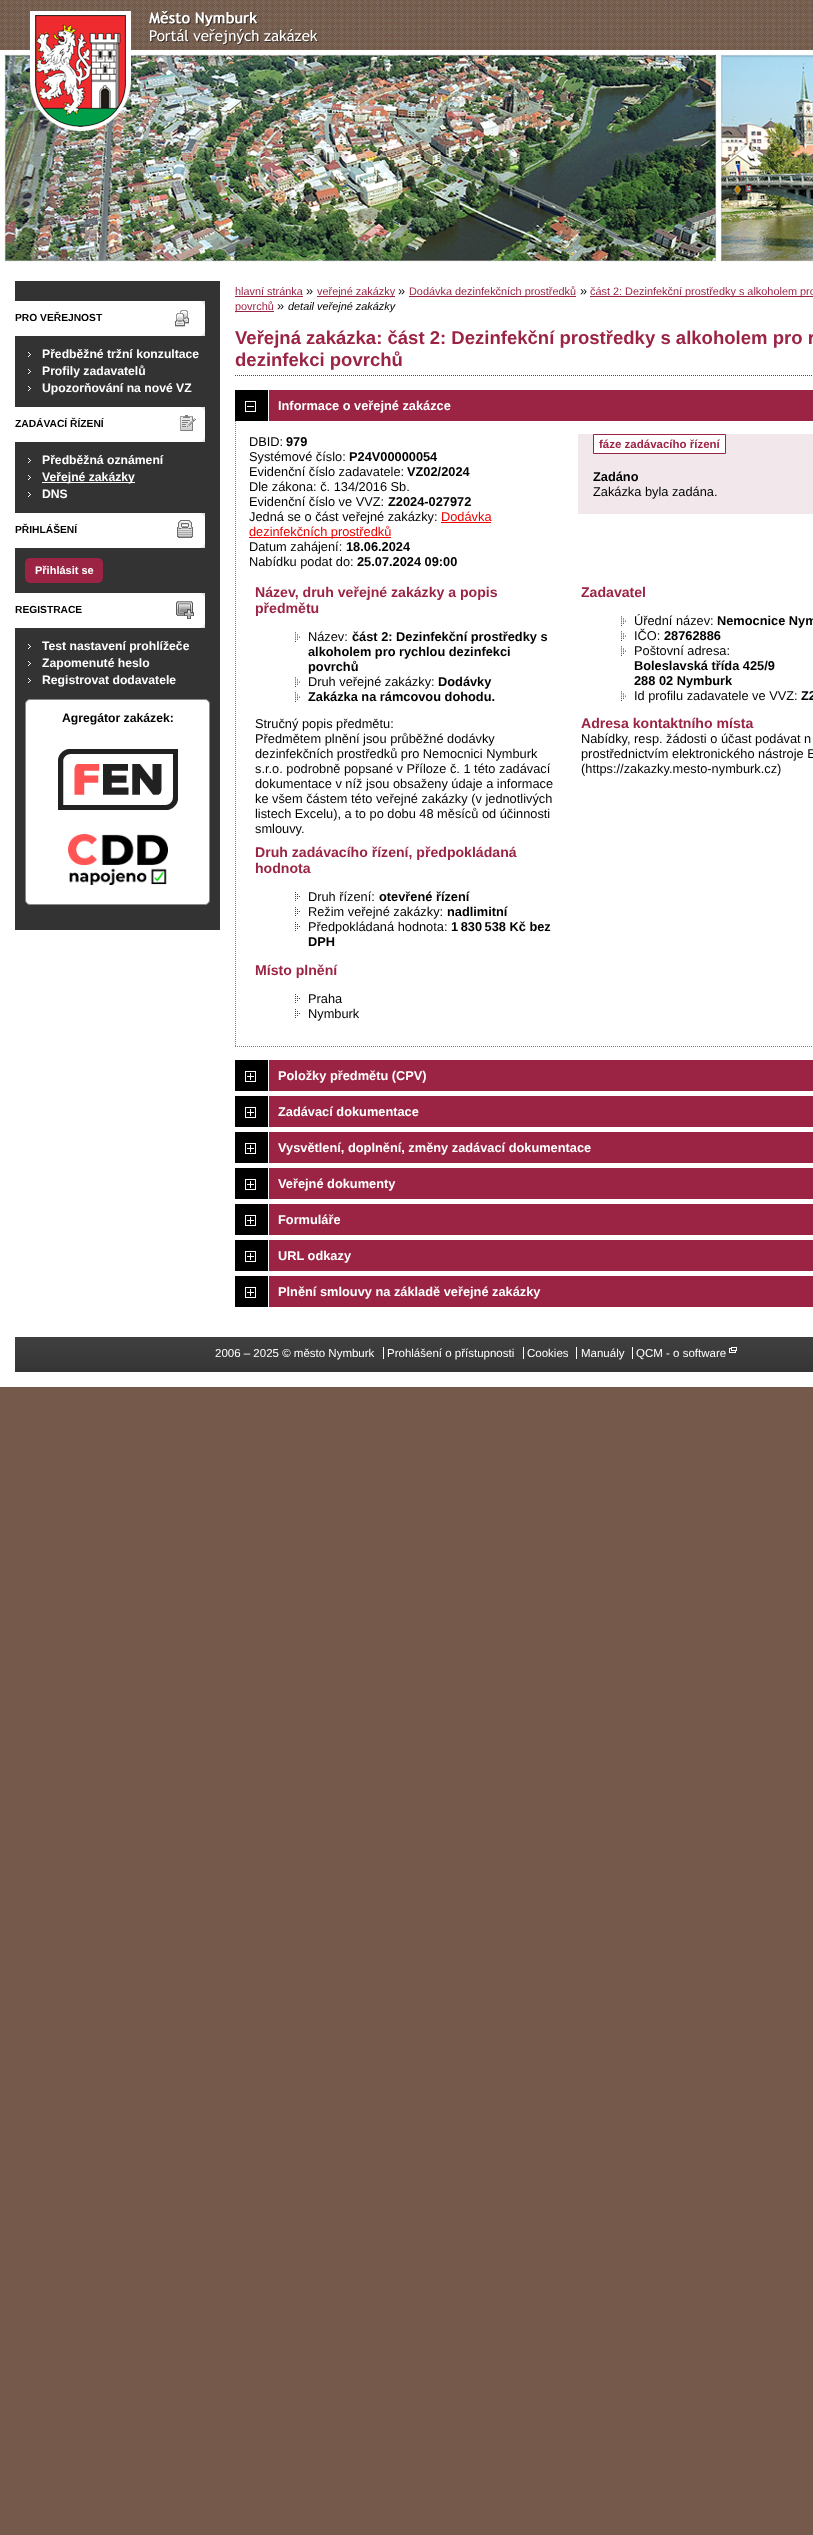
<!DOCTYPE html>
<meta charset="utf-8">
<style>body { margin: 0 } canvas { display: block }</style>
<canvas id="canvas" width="813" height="2535"></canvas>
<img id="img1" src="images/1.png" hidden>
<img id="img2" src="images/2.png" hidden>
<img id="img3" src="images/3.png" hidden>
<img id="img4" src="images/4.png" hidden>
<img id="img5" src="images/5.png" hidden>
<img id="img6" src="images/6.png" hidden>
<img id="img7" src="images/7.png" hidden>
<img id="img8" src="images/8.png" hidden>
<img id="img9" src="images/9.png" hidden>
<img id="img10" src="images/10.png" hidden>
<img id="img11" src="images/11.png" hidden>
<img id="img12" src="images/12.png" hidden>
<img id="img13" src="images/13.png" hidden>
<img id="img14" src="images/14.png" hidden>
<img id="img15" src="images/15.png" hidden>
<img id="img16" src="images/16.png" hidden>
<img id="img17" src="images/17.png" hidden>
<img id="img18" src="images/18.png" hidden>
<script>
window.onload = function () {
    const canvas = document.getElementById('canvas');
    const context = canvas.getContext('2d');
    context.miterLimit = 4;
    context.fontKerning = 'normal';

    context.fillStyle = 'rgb(117, 89, 75)';
    context.fillRect(0, 0, 813, 2535);
    context.drawImage(document.getElementById('img1'), 0, 0, 813, 266);
    context.drawImage(document.getElementById('img2'), 0, 50, 813, 216);
    context.drawImage(document.getElementById('img3'), 30, 11, 289, 120);
    context.fillStyle = 'rgb(255, 255, 255)';
    context.fillRect(0, 266, 813, 1121);
    context.fillStyle = 'rgb(51, 51, 51)';
    context.fillRect(15, 281, 205, 649);
    context.drawImage(document.getElementById('img4'), 15, 301, 190, 35);
    context.drawImage(document.getElementById('img5'), 28, 352, 3, 5);
    context.drawImage(document.getElementById('img5'), 28, 369, 3, 5);
    context.drawImage(document.getElementById('img5'), 28, 386, 3, 5);
    context.drawImage(document.getElementById('img6'), 15, 407, 190, 35);
    context.drawImage(document.getElementById('img5'), 28, 458, 3, 5);
    context.drawImage(document.getElementById('img5'), 28, 475, 3, 5);
    context.fillStyle = 'rgb(255, 255, 255)';
    context.fillRect(42, 482, 93, 1);
    context.drawImage(document.getElementById('img5'), 28, 492, 3, 5);
    context.drawImage(document.getElementById('img7'), 15, 513, 190, 35);
    context.fillStyle = 'rgb(155, 36, 69)';
    context.beginPath();
    context.roundRect(25, 558, 78, 25, 5);
    context.fill();
    context.drawImage(document.getElementById('img8'), 15, 593, 190, 35);
    context.drawImage(document.getElementById('img5'), 28, 644, 3, 5);
    context.drawImage(document.getElementById('img5'), 28, 661, 3, 5);
    context.drawImage(document.getElementById('img5'), 28, 678, 3, 5);
    context.fillStyle = 'rgb(255, 255, 255)';
    context.beginPath();
    context.roundRect(25.5, 699.5, 184, 205, 4.5);
    context.fill();
    context.strokeStyle = 'rgb(136, 136, 136)';
    context.stroke();
    context.drawImage(document.getElementById('img9'), 58, 749, 120, 61);
    context.drawImage(document.getElementById('img10'), 68, 834, 100, 51);
    context.fillStyle = 'rgb(155, 36, 69)';
    context.fillRect(235, 296, 68, 1);
    context.fillRect(317, 296, 78, 1);
    context.fillRect(409, 296, 167, 1);
    context.fillRect(590, 296, 223, 1);
    context.fillRect(235, 311, 39, 1);
    context.beginPath();
    context.moveTo(235, 375.5);
    context.lineTo(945, 375.5);
    context.strokeStyle = 'rgb(155, 36, 69)';
    context.setLineDash([1, 1]);
    context.stroke();
    context.drawImage(document.getElementById('img11'), 235, 390, 578, 31);
    context.drawImage(document.getElementById('img12'), 245, 401, 11, 11);
    context.beginPath();
    context.moveTo(235, 1046.5);
    context.lineTo(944, 1046.5);
    context.strokeStyle = 'rgb(127, 127, 127)';
    context.stroke();
    context.beginPath();
    context.moveTo(235.5, 421);
    context.lineTo(235.5, 1047);
    context.stroke();
    context.fillStyle = 'rgb(242, 232, 235)';
    context.fillRect(578, 434, 235, 80);
    context.fillStyle = 'rgb(255, 255, 255)';
    context.beginPath();
    context.rect(593.5, 434.5, 132, 19);
    context.fill();
    context.strokeStyle = 'rgb(155, 36, 69)';
    context.setLineDash([]);
    context.stroke();
    context.fillStyle = 'rgb(236, 2, 1)';
    context.fillRect(441, 522, 50, 1);
    context.fillRect(249, 537, 142, 1);
    context.drawImage(document.getElementById('img13'), 295, 632, 5, 10);
    context.drawImage(document.getElementById('img13'), 295, 677, 5, 10);
    context.drawImage(document.getElementById('img13'), 295, 692, 5, 10);
    context.drawImage(document.getElementById('img14'), 295, 892, 5, 9);
    context.drawImage(document.getElementById('img14'), 295, 907, 5, 9);
    context.drawImage(document.getElementById('img14'), 295, 922, 5, 9);
    context.drawImage(document.getElementById('img14'), 295, 994, 5, 9);
    context.drawImage(document.getElementById('img14'), 295, 1009, 5, 9);
    context.drawImage(document.getElementById('img13'), 621, 616, 5, 10);
    context.drawImage(document.getElementById('img13'), 621, 631, 5, 10);
    context.drawImage(document.getElementById('img15'), 621, 646, 5, 10);
    context.drawImage(document.getElementById('img13'), 621, 691, 5, 10);
    context.drawImage(document.getElementById('img11'), 235, 1060, 578, 31);
    context.drawImage(document.getElementById('img16'), 245, 1071, 11, 11);
    context.drawImage(document.getElementById('img11'), 235, 1096, 578, 31);
    context.drawImage(document.getElementById('img16'), 245, 1107, 11, 11);
    context.drawImage(document.getElementById('img11'), 235, 1132, 578, 31);
    context.drawImage(document.getElementById('img16'), 245, 1143, 11, 11);
    context.drawImage(document.getElementById('img11'), 235, 1168, 578, 31);
    context.drawImage(document.getElementById('img16'), 245, 1179, 11, 11);
    context.drawImage(document.getElementById('img11'), 235, 1204, 578, 31);
    context.drawImage(document.getElementById('img16'), 245, 1215, 11, 11);
    context.drawImage(document.getElementById('img11'), 235, 1240, 578, 31);
    context.drawImage(document.getElementById('img16'), 245, 1251, 11, 11);
    context.drawImage(document.getElementById('img11'), 235, 1276, 578, 31);
    context.drawImage(document.getElementById('img16'), 245, 1287, 11, 11);
    context.drawImage(document.getElementById('img17'), 15, 1337, 798, 35);
    context.fillStyle = 'rgb(255, 255, 255)';
    context.fillRect(383, 1347, 1, 12);
    context.fillRect(523, 1347, 1, 12);
    context.fillRect(576, 1347, 1, 12);
    context.fillRect(632, 1347, 1, 12);
    context.drawImage(document.getElementById('img18'), 729, 1347, 8, 6);
    context.font = 'bold 10.25px Liberation Sans';
    context.fillStyle = 'rgb(0, 0, 0)';
    context.fillText('PRO VEŘEJNOST', 15, 321);
    context.font = 'bold 12.2px Liberation Sans';
    context.fillStyle = 'rgb(255, 255, 255)';
    context.fillText('Předběžné tržní konzultace', 42, 358);
    context.fillText('Profily zadavatelů', 42, 375);
    context.fillText('Upozorňování na nové VZ', 42, 392);
    context.font = 'bold 10.25px Liberation Sans';
    context.fillStyle = 'rgb(0, 0, 0)';
    context.fillText('ZADÁVACÍ ŘÍZENÍ', 15, 427);
    context.font = 'bold 12.2px Liberation Sans';
    context.fillStyle = 'rgb(255, 255, 255)';
    context.fillText('Předběžná oznámení', 42, 464);
    context.fillText('Veřejné zakázky', 42, 481);
    context.fillText('DNS', 42, 498);
    context.font = 'bold 10.25px Liberation Sans';
    context.fillStyle = 'rgb(0, 0, 0)';
    context.fillText('PŘIHLÁŠENÍ', 15, 533);
    context.font = 'bold 11px Liberation Sans';
    context.fillStyle = 'rgb(255, 255, 255)';
    context.fillText('Přihlásit se', 35, 574);
    context.font = 'bold 10.25px Liberation Sans';
    context.fillStyle = 'rgb(0, 0, 0)';
    context.fillText('REGISTRACE', 15, 613);
    context.font = 'bold 12.2px Liberation Sans';
    context.fillStyle = 'rgb(255, 255, 255)';
    context.fillText('Test nastavení prohlížeče', 42, 650);
    context.fillText('Zapomenuté heslo', 42, 667);
    context.fillText('Registrovat dodavatele', 42, 684);
    context.fillStyle = 'rgb(0, 0, 0)';
    context.fillText('Agregátor zakázek:', 62, 722);
    context.font = '10.9px Liberation Sans';
    context.fillStyle = 'rgb(155, 36, 69)';
    context.fillText('hlavní stránka', 235, 295);
    context.font = '12.8px Liberation Sans';
    context.fillStyle = 'rgb(0, 0, 0)';
    context.fillText('»', 306, 295);
    context.font = '10.9px Liberation Sans';
    context.fillStyle = 'rgb(155, 36, 69)';
    context.fillText('veřejné zakázky', 317, 295);
    context.font = '12.8px Liberation Sans';
    context.fillStyle = 'rgb(0, 0, 0)';
    context.fillText('»', 398, 295);
    context.font = '10.9px Liberation Sans';
    context.fillStyle = 'rgb(155, 36, 69)';
    context.fillText('Dodávka dezinfekčních prostředků', 409, 295);
    context.font = '12.8px Liberation Sans';
    context.fillStyle = 'rgb(0, 0, 0)';
    context.fillText('»', 580, 295);
    context.font = '10.9px Liberation Sans';
    context.fillStyle = 'rgb(155, 36, 69)';
    context.fillText('část 2: Dezinfekční prostředky s alkoholem pro', 590, 295);
    context.fillText('povrchů', 235, 310);
    context.font = '12.8px Liberation Sans';
    context.fillStyle = 'rgb(0, 0, 0)';
    context.fillText('»', 277, 310);
    context.font = 'italic 10.9px Liberation Sans';
    context.fillText('detail veřejné zakázky', 288, 310);
    context.font = 'bold 18.55px Liberation Sans';
    context.fillStyle = 'rgb(155, 36, 69)';
    context.fillText('Veřejná zakázka: část 2: Dezinfekční prostředky s alkoholem pro r', 235, 344);
    context.fillText('dezinfekci povrchů', 235, 366);
    context.font = 'bold 12.8px Liberation Sans';
    context.fillStyle = 'rgb(255, 255, 255)';
    context.fillText('Informace o veřejné zakázce', 278, 410);
    context.font = '12.8px Liberation Sans';
    context.fillStyle = 'rgb(0, 0, 0)';
    context.fillText('DBID:', 249, 446);
    context.font = 'bold 12.8px Liberation Sans';
    context.fillText('979', 286, 446);
    context.font = 'bold 11.5px Liberation Sans';
    context.fillStyle = 'rgb(155, 36, 69)';
    context.fillText('fáze zadávacího řízení', 599, 448);
    context.font = 'bold 12.8px Liberation Sans';
    context.fillStyle = 'rgb(0, 0, 0)';
    context.fillText('Zadáno', 593, 481);
    context.font = '12.8px Liberation Sans';
    context.fillText('Zakázka byla zadána.', 593, 496);
    context.fillText('Systémové číslo:', 249, 461);
    context.font = 'bold 12.8px Liberation Sans';
    context.fillText('P24V00000054', 349, 461);
    context.font = '12.8px Liberation Sans';
    context.fillText('Evidenční číslo zadavatele:', 249, 476);
    context.font = 'bold 12.8px Liberation Sans';
    context.fillText('VZ02/2024', 407, 476);
    context.font = '12.8px Liberation Sans';
    context.fillText('Dle zákona: č. 134/2016 Sb.', 249, 491);
    context.fillText('Evidenční číslo ve VVZ:', 249, 506);
    context.font = 'bold 12.8px Liberation Sans';
    context.fillText('Z2024-027972', 388, 506);
    context.font = '12.8px Liberation Sans';
    context.fillText('Jedná se o část veřejné zakázky:', 249, 521);
    context.fillStyle = 'rgb(236, 2, 1)';
    context.fillText('Dodávka', 441, 521);
    context.fillText('dezinfekčních prostředků', 249, 536);
    context.fillStyle = 'rgb(0, 0, 0)';
    context.fillText('Datum zahájení:', 249, 551);
    context.font = 'bold 12.8px Liberation Sans';
    context.fillText('18.06.2024', 346, 551);
    context.font = '12.8px Liberation Sans';
    context.fillText('Nabídku podat do:', 249, 566);
    context.font = 'bold 12.8px Liberation Sans';
    context.fillText('25.07.2024 09:00', 357, 566);
    context.font = 'bold 14.1px Liberation Sans';
    context.fillStyle = 'rgb(155, 36, 69)';
    context.fillText('Název, druh veřejné zakázky a popis', 255, 597);
    context.fillText('předmětu', 255, 613);
    context.font = '12.8px Liberation Sans';
    context.fillStyle = 'rgb(0, 0, 0)';
    context.fillText('Název:', 308, 641);
    context.font = 'bold 12.8px Liberation Sans';
    context.fillText('část 2: Dezinfekční prostředky s', 352, 641);
    context.fillText('alkoholem pro rychlou dezinfekci', 308, 656);
    context.fillText('povrchů', 308, 671);
    context.font = '12.8px Liberation Sans';
    context.fillText('Druh veřejné zakázky:', 308, 686);
    context.font = 'bold 12.8px Liberation Sans';
    context.fillText('Dodávky', 438, 686);
    context.fillText('Zakázka na rámcovou dohodu.', 308, 701);
    context.font = '12.8px Liberation Sans';
    context.fillText('Stručný popis předmětu:', 255, 728);
    context.fillText('Předmětem plnění jsou průběžné dodávky', 255, 743);
    context.fillText('dezinfekčních prostředků pro Nemocnici Nymburk', 255, 758);
    context.fillText('s.r.o. podrobně popsané v Příloze č. 1 této zadávací', 255, 773);
    context.fillText('dokumentace v níž jsou obsaženy údaje a informace', 255, 788);
    context.fillText('ke všem částem této veřejné zakázky (v jednotlivých', 255, 803);
    context.fillText('listech Excelu), a to po dobu 48 měsíců od účinnosti', 255, 818);
    context.fillText('smlouvy.', 255, 833);
    context.font = 'bold 14.1px Liberation Sans';
    context.fillStyle = 'rgb(155, 36, 69)';
    context.fillText('Druh zadávacího řízení, předpokládaná', 255, 857);
    context.fillText('hodnota', 255, 873);
    context.font = '12.8px Liberation Sans';
    context.fillStyle = 'rgb(0, 0, 0)';
    context.fillText('Druh řízení:', 308, 901);
    context.font = 'bold 12.8px Liberation Sans';
    context.fillText('otevřené řízení', 379, 901);
    context.font = '12.8px Liberation Sans';
    context.fillText('Režim veřejné zakázky:', 308, 916);
    context.font = 'bold 12.8px Liberation Sans';
    context.fillText('nadlimitní', 447, 916);
    context.font = '12.8px Liberation Sans';
    context.fillText('Předpokládaná hodnota:', 308, 931);
    context.font = 'bold 12.8px Liberation Sans';
    context.fillText('1 830 538 Kč bez', 451, 931);
    context.fillText('DPH', 308, 946);
    context.font = 'bold 14.1px Liberation Sans';
    context.fillStyle = 'rgb(155, 36, 69)';
    context.fillText('Místo plnění', 255, 975);
    context.font = '12.8px Liberation Sans';
    context.fillStyle = 'rgb(0, 0, 0)';
    context.fillText('Praha', 308, 1003);
    context.fillText('Nymburk', 308, 1018);
    context.font = 'bold 14.1px Liberation Sans';
    context.fillStyle = 'rgb(155, 36, 69)';
    context.fillText('Zadavatel', 581, 597);
    context.font = '12.8px Liberation Sans';
    context.fillStyle = 'rgb(0, 0, 0)';
    context.fillText('Úřední název:', 634, 625);
    context.font = 'bold 12.8px Liberation Sans';
    context.fillText('Nemocnice Nym', 717, 625);
    context.font = '12.8px Liberation Sans';
    context.fillText('IČO:', 634, 640);
    context.font = 'bold 12.8px Liberation Sans';
    context.fillText('28762886', 664, 640);
    context.font = '12.8px Liberation Sans';
    context.fillText('Poštovní adresa:', 634, 655);
    context.font = 'bold 12.8px Liberation Sans';
    context.fillText('Boleslavská třída 425/9', 634, 670);
    context.fillText('288 02 Nymburk', 634, 685);
    context.font = '12.8px Liberation Sans';
    context.fillText('Id profilu zadavatele ve VVZ:', 634, 700);
    context.font = 'bold 12.8px Liberation Sans';
    context.fillText('Z2', 801, 700);
    context.font = 'bold 14.1px Liberation Sans';
    context.fillStyle = 'rgb(155, 36, 69)';
    context.fillText('Adresa kontaktního místa', 581, 728);
    context.font = '12.8px Liberation Sans';
    context.fillStyle = 'rgb(0, 0, 0)';
    context.fillText('Nabídky, resp. žádosti o účast podávat n', 581, 743);
    context.fillText('prostřednictvím elektronického nástroje E', 581, 758);
    context.fillText('(https://zakazky.mesto-nymburk.cz)', 581, 773);
    context.font = 'bold 12.8px Liberation Sans';
    context.fillStyle = 'rgb(255, 255, 255)';
    context.fillText('Položky předmětu (CPV)', 278, 1080);
    context.fillText('Zadávací dokumentace', 278, 1116);
    context.fillText('Vysvětlení, doplnění, změny zadávací dokumentace', 278, 1152);
    context.fillText('Veřejné dokumenty', 278, 1188);
    context.fillText('Formuláře', 278, 1224);
    context.fillText('URL odkazy', 278, 1260);
    context.fillText('Plnění smlouvy na základě veřejné zakázky', 278, 1296);
    context.font = '11.5px Liberation Sans';
    context.fillText('2006 – 2025 © město Nymburk', 215, 1357);
    context.fillText('Prohlášení o přístupnosti', 387, 1357);
    context.fillText('Cookies', 527, 1357);
    context.fillText('Manuály', 581, 1357);
    context.fillText('QCM - o software', 636, 1357);
};
</script>
